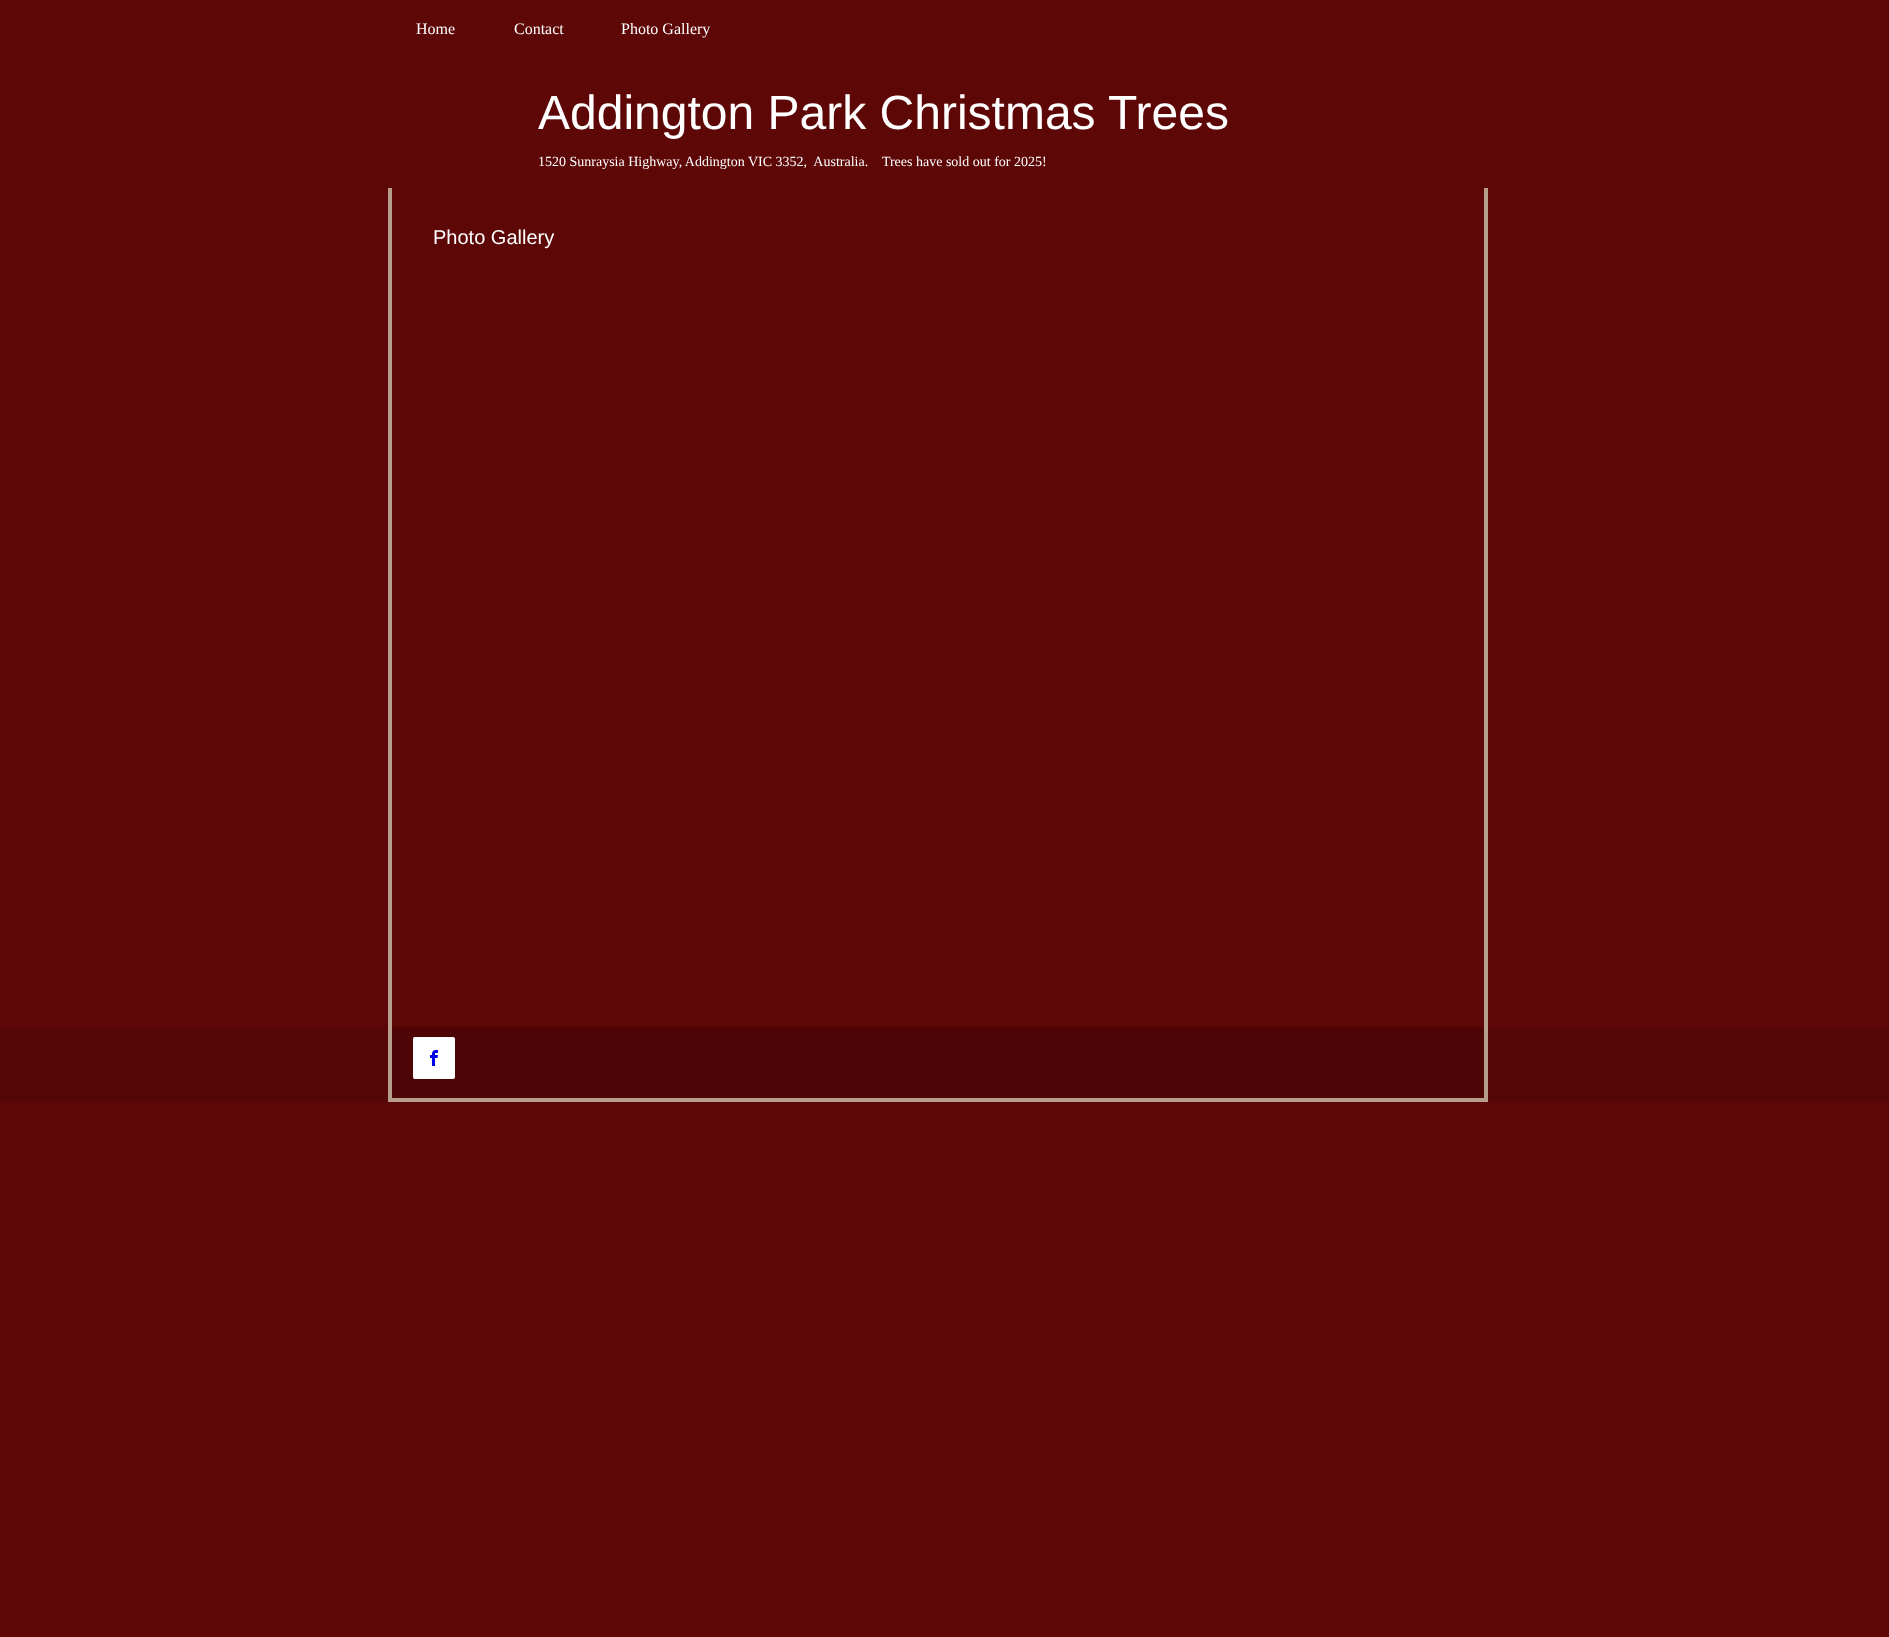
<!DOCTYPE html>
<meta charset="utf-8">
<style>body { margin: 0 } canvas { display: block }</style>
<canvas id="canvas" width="1889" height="1637"></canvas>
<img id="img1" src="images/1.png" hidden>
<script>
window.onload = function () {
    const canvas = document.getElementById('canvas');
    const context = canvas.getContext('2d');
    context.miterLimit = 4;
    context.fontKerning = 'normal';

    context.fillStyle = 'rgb(94, 7, 7)';
    context.fillRect(0, 0, 1889, 1637);
    context.fillStyle = 'rgb(183, 157, 140)';
    context.fillRect(388, 188, 4, 839);
    context.fillRect(1484, 188, 4, 839);
    context.fillStyle = 'rgb(85, 6, 6)';
    context.fillRect(0, 1027, 1889, 75);
    context.fillStyle = 'rgb(183, 157, 140)';
    context.fillRect(388, 1027, 4, 75);
    context.fillStyle = 'rgb(77, 5, 5)';
    context.fillRect(392, 1027, 1092, 71);
    context.fillStyle = 'rgb(255, 255, 255)';
    context.beginPath();
    context.roundRect(413, 1037, 42, 42, 2);
    context.fill();
    context.drawImage(document.getElementById('img1'), 430, 1050, 8, 16);
    context.fillStyle = 'rgb(183, 157, 140)';
    context.fillRect(1484, 1027, 4, 75);
    context.fillRect(388, 1098, 1100, 4);
    context.font = '16px Liberation Serif';
    context.fillStyle = 'rgb(255, 255, 255)';
    context.fillText('Home', 416, 34);
    context.fillText('Contact', 514, 34);
    context.fillText('Photo Gallery', 621, 34);
    context.font = '48px Liberation Sans';
    context.fillText('Addington Park Christmas Trees', 538, 129);
    context.font = '14px Liberation Serif';
    context.fillText('1520 Sunraysia Highway, Addington VIC 3352,  Australia.    Trees have sold out for 2025!', 538, 166);
    context.font = '20px Arimo';
    context.fillText('Photo Gallery', 433, 244);
};
</script>
